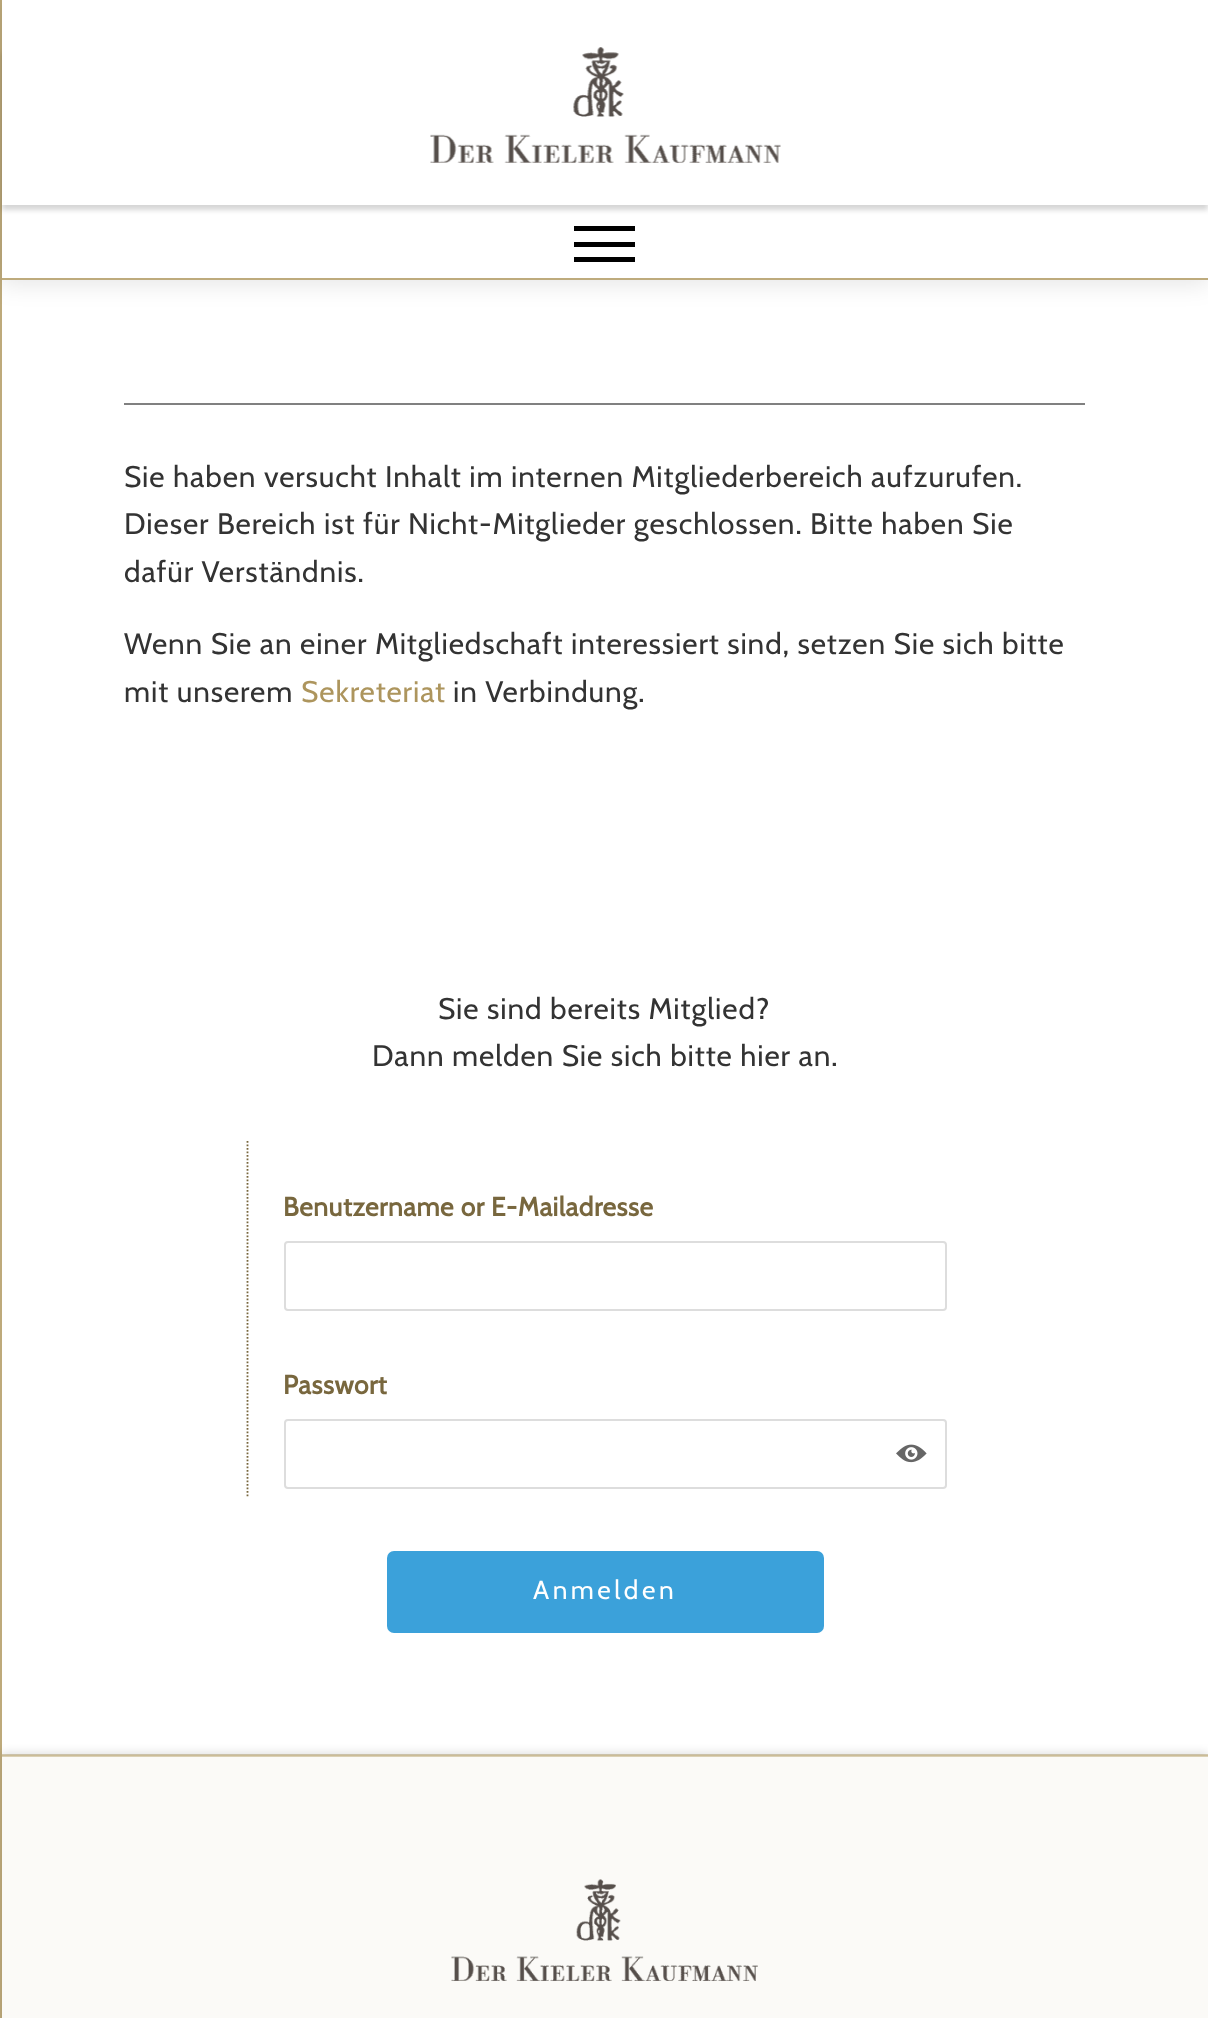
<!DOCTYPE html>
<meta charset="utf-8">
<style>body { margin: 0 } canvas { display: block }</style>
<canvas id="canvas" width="1208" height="2018"></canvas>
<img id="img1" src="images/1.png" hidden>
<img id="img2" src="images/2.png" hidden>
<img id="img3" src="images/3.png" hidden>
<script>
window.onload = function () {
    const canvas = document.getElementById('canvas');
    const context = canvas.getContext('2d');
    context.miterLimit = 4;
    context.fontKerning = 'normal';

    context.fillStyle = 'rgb(190, 170, 123)';
    context.fillRect(0, 0, 1208, 2018);
    context.fillStyle = 'rgb(255, 255, 255)';
    context.fillRect(2, 280, 1206, 1474);
    context.fillStyle = 'rgba(0, 0, 0, 0.1)';
    context.filter = 'blur(11.5px)';
    context.beginPath();
    context.rect(0, 0, 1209, 284);
    context.fill();
    context.filter = 'none';
    context.fillStyle = 'rgb(255, 255, 255)';
    context.fillRect(2, 0, 1206, 278);
    context.fillStyle = 'rgb(190, 171, 125)';
    context.fillRect(2, 278, 1206, 2);
    context.save();
    context.beginPath();
    context.moveTo(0, 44);
    context.lineTo(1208, 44);
    context.lineTo(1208, 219);
    context.lineTo(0, 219);
    context.closePath();
    context.moveTo(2, 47);
    context.lineTo(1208, 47);
    context.lineTo(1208, 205);
    context.lineTo(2, 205);
    context.closePath();
    context.clip('evenodd');
    context.fillStyle = 'rgba(0, 0, 0, 0.16)';
    context.filter = 'blur(2.5px)';
    context.beginPath();
    context.rect(2, 53, 1206, 157);
    context.fill();
    context.filter = 'none';
    context.restore();
    context.drawImage(document.getElementById('img1'), 430, 47, 351, 116);
    context.fillStyle = 'rgb(0, 0, 0)';
    context.fillRect(574, 226, 61, 5);
    context.fillRect(574, 242, 61, 5);
    context.fillRect(574, 257, 61, 5);
    context.fillStyle = 'rgb(220, 210, 185)';
    context.fillRect(2, 1754, 1206, 2);
    context.fillStyle = 'rgb(128, 128, 128)';
    context.fillRect(124, 403, 961, 2);
    context.beginPath();
    context.moveTo(247.5, 1141);
    context.lineTo(247.5, 1319.5);
    context.strokeStyle = 'rgb(120, 103, 62)';
    context.lineWidth = 1.8;
    context.setLineDash([1.75, 1.75]);
    context.stroke();
    context.beginPath();
    context.roundRect(285, 1242, 661, 68, 3);
    context.strokeStyle = 'rgb(221, 221, 221)';
    context.lineWidth = 2;
    context.setLineDash([]);
    context.stroke();
    context.beginPath();
    context.moveTo(247.5, 1319.5);
    context.lineTo(247.5, 1498);
    context.strokeStyle = 'rgb(120, 103, 62)';
    context.lineWidth = 1.8;
    context.setLineDash([1.75, 1.75]);
    context.stroke();
    context.beginPath();
    context.roundRect(285, 1420, 661, 68, 3);
    context.strokeStyle = 'rgb(221, 221, 221)';
    context.lineWidth = 2;
    context.setLineDash([]);
    context.stroke();
    context.drawImage(document.getElementById('img2'), 896, 1444, 31, 19);
    context.fillStyle = 'rgb(59, 161, 218)';
    context.beginPath();
    context.roundRect(387, 1551, 437, 82, 7);
    context.fill();
    context.fillStyle = 'rgb(255, 255, 255)';
    context.fillRect(2, 1756, 1206, 262);
    context.save();
    context.beginPath();
    context.moveTo(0, 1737);
    context.lineTo(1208, 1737);
    context.lineTo(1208, 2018);
    context.lineTo(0, 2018);
    context.closePath();
    context.moveTo(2, 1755);
    context.lineTo(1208, 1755);
    context.lineTo(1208, 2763);
    context.lineTo(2, 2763);
    context.closePath();
    context.clip('evenodd');
    context.fillStyle = 'rgba(0, 0, 0, 0.11)';
    context.filter = 'blur(4.5px)';
    context.beginPath();
    context.rect(2, 1752, 1206, 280);
    context.fill();
    context.filter = 'none';
    context.restore();
    context.fillStyle = 'rgba(190, 170, 123, 0.06)';
    context.fillRect(2, 1755, 1206, 263);
    context.fillStyle = 'rgba(190, 171, 125, 0.54)';
    context.fillRect(2, 1755, 1206, 2);
    context.drawImage(document.getElementById('img3'), 451, 1879, 307, 102);
    context.letterSpacing = '0.9px';
    context.font = '29.75px Cabin';
    context.fillStyle = 'rgb(51, 51, 51)';
    context.fillText('Sie haben versucht Inhalt im internen Mitgliederbereich aufzurufen.', 124, 487);
    context.fillText('Dieser Bereich ist für Nicht-Mitglieder geschlossen. Bitte haben Sie', 124, 534);
    context.fillText('dafür Verständnis.', 124, 582);
    context.fillText('Wenn Sie an einer Mitgliedschaft interessiert sind, setzen Sie sich bitte', 124, 654);
    context.fillText('mit unserem', 124, 702);
    context.fillStyle = 'rgb(173, 149, 93)';
    context.fillText('Sekreteriat', 301, 702);
    context.fillStyle = 'rgb(51, 51, 51)';
    context.fillText('in Verbindung.', 453, 702);
    context.fillText('Sie sind bereits Mitglied?', 438, 1019);
    context.fillText('Dann melden Sie sich bitte hier an.', 372, 1066);
    context.letterSpacing = '0.6px';
    context.font = 'bold 26.25px Cabin';
    context.fillStyle = 'rgb(120, 103, 62)';
    context.fillText('Benutzername or E-Mailadresse', 283, 1216);
    context.fillText('Passwort', 283, 1394);
    context.letterSpacing = '3.5px';
    context.font = '26.25px Cabin';
    context.fillStyle = 'rgb(255, 255, 255)';
    context.fillText('Anmelden', 533, 1599);
};
</script>
